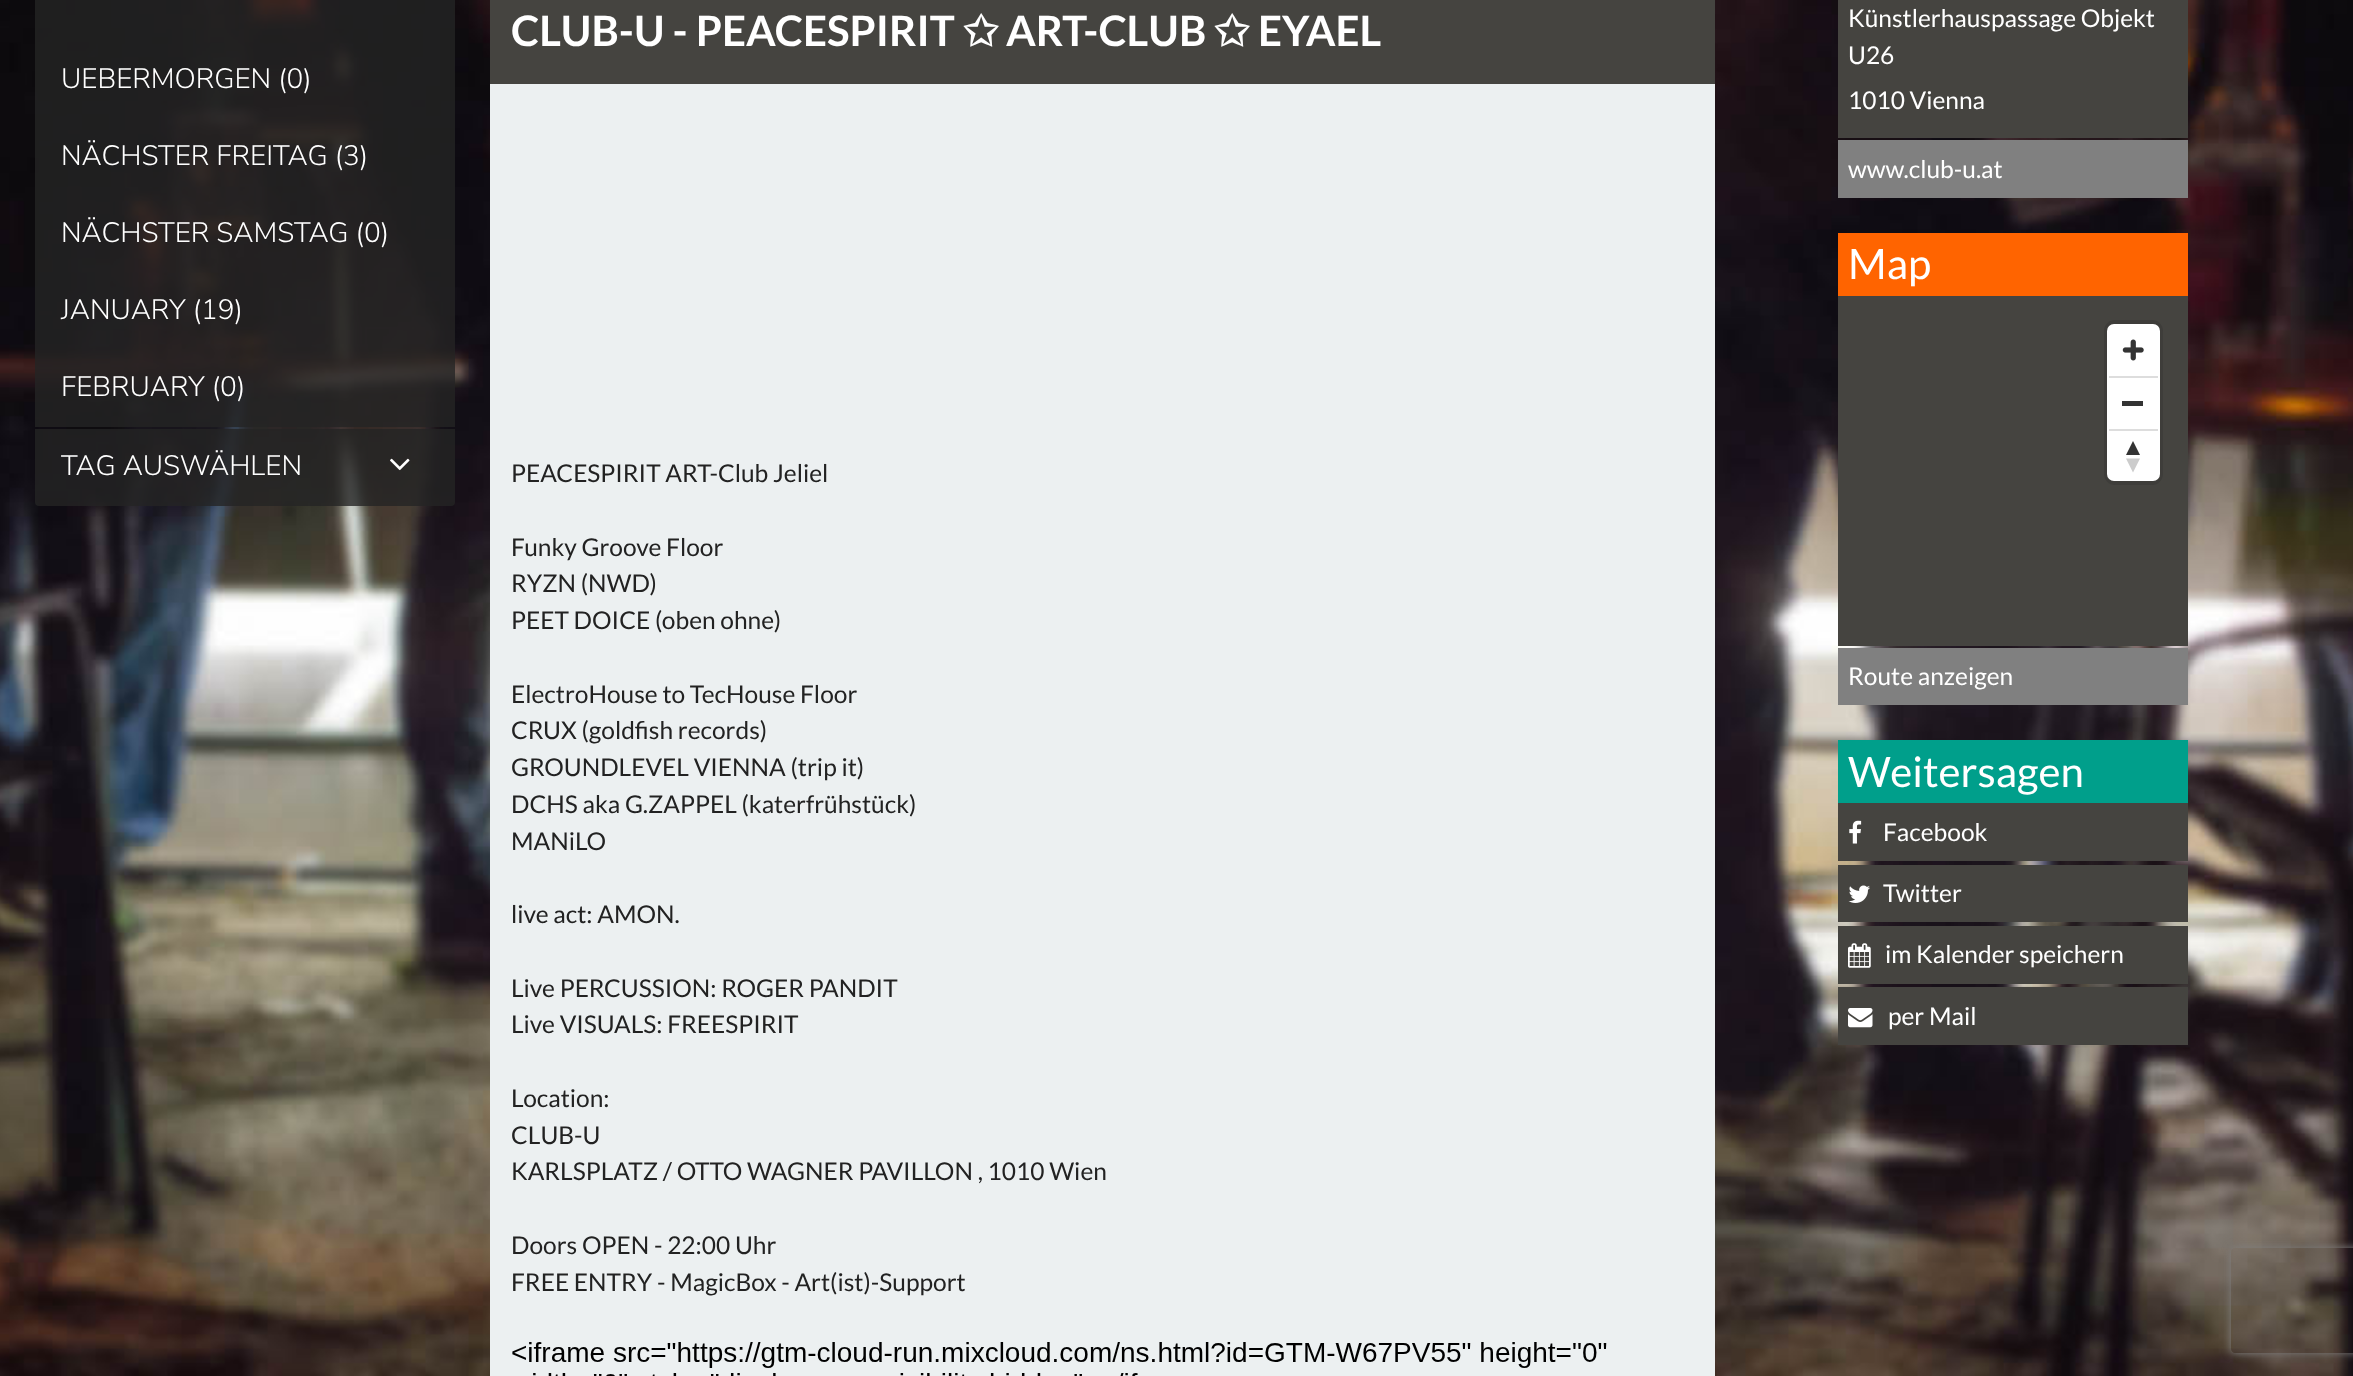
<!DOCTYPE html>
<meta charset="utf-8">
<style>body { margin: 0 } canvas { display: block }</style>
<canvas id="canvas" width="2353" height="1376"></canvas>
<img id="img1" src="images/1.png" hidden>
<img id="img2" src="images/2.png" hidden>
<img id="img3" src="images/3.png" hidden>
<img id="img4" src="images/4.png" hidden>
<img id="img5" src="images/5.png" hidden>
<img id="img6" src="images/6.png" hidden>
<img id="img7" src="images/7.png" hidden>
<img id="img8" src="images/8.png" hidden>
<script>
window.onload = function () {
    const canvas = document.getElementById('canvas');
    const context = canvas.getContext('2d');
    context.miterLimit = 4;
    context.fontKerning = 'normal';

    context.fillStyle = 'rgb(255, 255, 255)';
    context.fillRect(0, 0, 2353, 1376);
    context.drawImage(document.getElementById('img1'), 0, 0, 2353, 1376);
    context.fillStyle = 'rgba(36, 36, 36, 0.8)';
    context.fillRect(35, 0, 420, 42);
    context.fillRect(35, 42, 420, 77);
    context.fillRect(35, 119, 420, 77);
    context.fillRect(35, 196, 420, 77);
    context.fillRect(35, 273, 420, 77);
    context.fillRect(35, 350, 420, 77);
    context.beginPath();
    context.roundRect(35, 429, 420, 77, [0, 0, 4, 4]);
    context.fill();
    context.drawImage(document.getElementById('img2'), 390, 458, 20, 13);
    context.fillStyle = 'rgb(69, 68, 64)';
    context.fillRect(490, 0, 1225, 84);
    context.fillStyle = 'rgb(236, 240, 241)';
    context.fillRect(490, 84, 1225, 1292);
    context.drawImage(document.getElementById('img3'), 512, 1342, 1095, 34);
    context.fillStyle = 'rgb(69, 68, 64)';
    context.fillRect(1838, 0, 350, 138);
    context.fillStyle = 'rgb(128, 128, 128)';
    context.fillRect(1838, 140, 350, 58);
    context.fillStyle = 'rgb(255, 100, 0)';
    context.fillRect(1838, 233, 350, 63);
    context.fillStyle = 'rgb(69, 68, 64)';
    context.fillRect(1838, 296, 350, 350);
    context.beginPath();
    context.roundRect(2106, 322, 55, 161, 9);
    context.strokeStyle = 'rgb(62, 61, 58)';
    context.lineWidth = 4;
    context.stroke();
    context.fillStyle = 'rgb(255, 255, 255)';
    context.beginPath();
    context.roundRect(2107, 324, 53, 157, 7);
    context.fill();
    context.drawImage(document.getElementById('img4'), 2122, 339, 22, 22);
    context.fillStyle = 'rgb(51, 51, 51)';
    context.fillRect(2122, 401, 21, 5);
    context.fillStyle = 'rgb(221, 221, 221)';
    context.fillRect(2109, 376, 49, 2);
    context.fillRect(2109, 429, 49, 2);
    context.fillStyle = 'rgb(51, 51, 51)';
    context.beginPath();
    context.moveTo(2126, 455);
    context.lineTo(2133, 441);
    context.lineTo(2140, 455);
    context.closePath();
    context.fill();
    context.fillStyle = 'rgb(204, 204, 204)';
    context.beginPath();
    context.moveTo(2126, 458.5);
    context.lineTo(2133, 472.5);
    context.lineTo(2140, 458.5);
    context.closePath();
    context.fill();
    context.fillStyle = 'rgb(128, 128, 128)';
    context.fillRect(1838, 648, 350, 57);
    context.fillStyle = 'rgb(0, 159, 139)';
    context.fillRect(1838, 740, 350, 63);
    context.fillStyle = 'rgb(69, 68, 64)';
    context.fillRect(1838, 803, 350, 58);
    context.drawImage(document.getElementById('img5'), 1849, 820, 13, 24);
    context.fillRect(1838, 865, 350, 57);
    context.drawImage(document.getElementById('img6'), 1848, 885, 22, 18);
    context.fillRect(1838, 926, 350, 58);
    context.drawImage(document.getElementById('img7'), 1848, 943, 23, 25);
    context.fillRect(1838, 987, 350, 58);
    context.drawImage(document.getElementById('img8'), 1848, 1008, 25, 20);
    context.save();
    context.beginPath();
    context.moveTo(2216, 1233);
    context.lineTo(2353, 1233);
    context.lineTo(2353, 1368);
    context.lineTo(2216, 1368);
    context.closePath();
    context.moveTo(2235, 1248);
    context.lineTo(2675, 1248);
    context.bezierCurveTo(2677, 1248, 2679, 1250, 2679, 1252);
    context.lineTo(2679, 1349);
    context.bezierCurveTo(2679, 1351, 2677, 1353, 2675, 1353);
    context.lineTo(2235, 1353);
    context.bezierCurveTo(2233, 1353, 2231, 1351, 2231, 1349);
    context.lineTo(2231, 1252);
    context.bezierCurveTo(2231, 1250, 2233, 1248, 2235, 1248);
    context.closePath();
    context.clip('evenodd');
    context.fillStyle = 'rgb(128, 128, 128)';
    context.filter = 'blur(4.5px)';
    context.beginPath();
    context.roundRect(2231, 1248, 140, 105, 4);
    context.fill();
    context.filter = 'none';
    context.restore();
    context.font = '300 28px Nunito Sans';
    context.fillStyle = 'rgb(255, 255, 255)';
    context.fillText('UEBERMORGEN (0)', 61, 88);
    context.fillText('NÄCHSTER FREITAG (3)', 61, 165);
    context.fillText('NÄCHSTER SAMSTAG (0)', 61, 242);
    context.fillText('JANUARY (19)', 61, 319);
    context.fillText('FEBRUARY (0)', 61, 396);
    context.fillText('TAG AUSWÄHLEN', 61, 475);
    context.font = 'bold 42px Lato';
    context.fillText('CLUB-U - PEACESPIRIT', 511, 46);
    context.font = 'bold 42px DejaVu Sans';
    context.fillText('✩', 963, 46);
    context.font = 'bold 42px Lato';
    context.fillText('ART-CLUB', 1006, 46);
    context.font = 'bold 42px DejaVu Sans';
    context.fillText('✩', 1214, 46);
    context.font = 'bold 42px Lato';
    context.fillText('EYAEL', 1258, 46);
    context.font = '24.5px Lato';
    context.fillStyle = 'rgb(34, 34, 34)';
    context.fillText('PEACESPIRIT ART-Club Jeliel', 511, 482);
    context.fillText('Funky Groove Floor', 511, 556);
    context.fillText('RYZN (NWD)', 511, 592);
    context.fillText('PEET DOICE (oben ohne)', 511, 629);
    context.fillText('ElectroHouse to TecHouse Floor', 511, 703);
    context.fillText('CRUX (goldfish records)', 511, 739);
    context.fillText('GROUNDLEVEL VIENNA (trip it)', 511, 776);
    context.fillText('DCHS aka G.ZAPPEL (katerfrühstück)', 511, 813);
    context.fillText('MANiLO', 511, 850);
    context.fillText('live act: AMON.', 511, 923);
    context.fillText('Live PERCUSSION: ROGER PANDIT', 511, 997);
    context.fillText('Live VISUALS: FREESPIRIT', 511, 1033);
    context.fillText('Location:', 511, 1107);
    context.fillText('CLUB-U', 511, 1144);
    context.fillText('KARLSPLATZ / OTTO WAGNER PAVILLON , 1010 Wien', 511, 1180);
    context.fillText('Doors OPEN - 22:00 Uhr', 511, 1254);
    context.fillText('FREE ENTRY - MagicBox - Art(ist)-Support', 511, 1291);
    context.fillStyle = 'rgb(255, 255, 255)';
    context.fillText('Künstlerhauspassage Objekt', 1848, 27);
    context.fillText('U26', 1848, 64);
    context.fillText('1010 Vienna', 1848, 109);
    context.fillText('www.club-u.at', 1848, 178);
    context.font = '42px Lato';
    context.fillText('Map', 1848, 279);
    context.font = '24.5px Lato';
    context.fillText('Route anzeigen', 1848, 685);
    context.font = '42px Lato';
    context.fillText('Weitersagen', 1848, 787);
    context.font = '24.5px Lato';
    context.fillText('Facebook', 1883, 841);
    context.fillText('Twitter', 1883, 902);
    context.fillText('im Kalender speichern', 1885, 963);
    context.fillText('per Mail', 1888, 1025);
};
</script>
